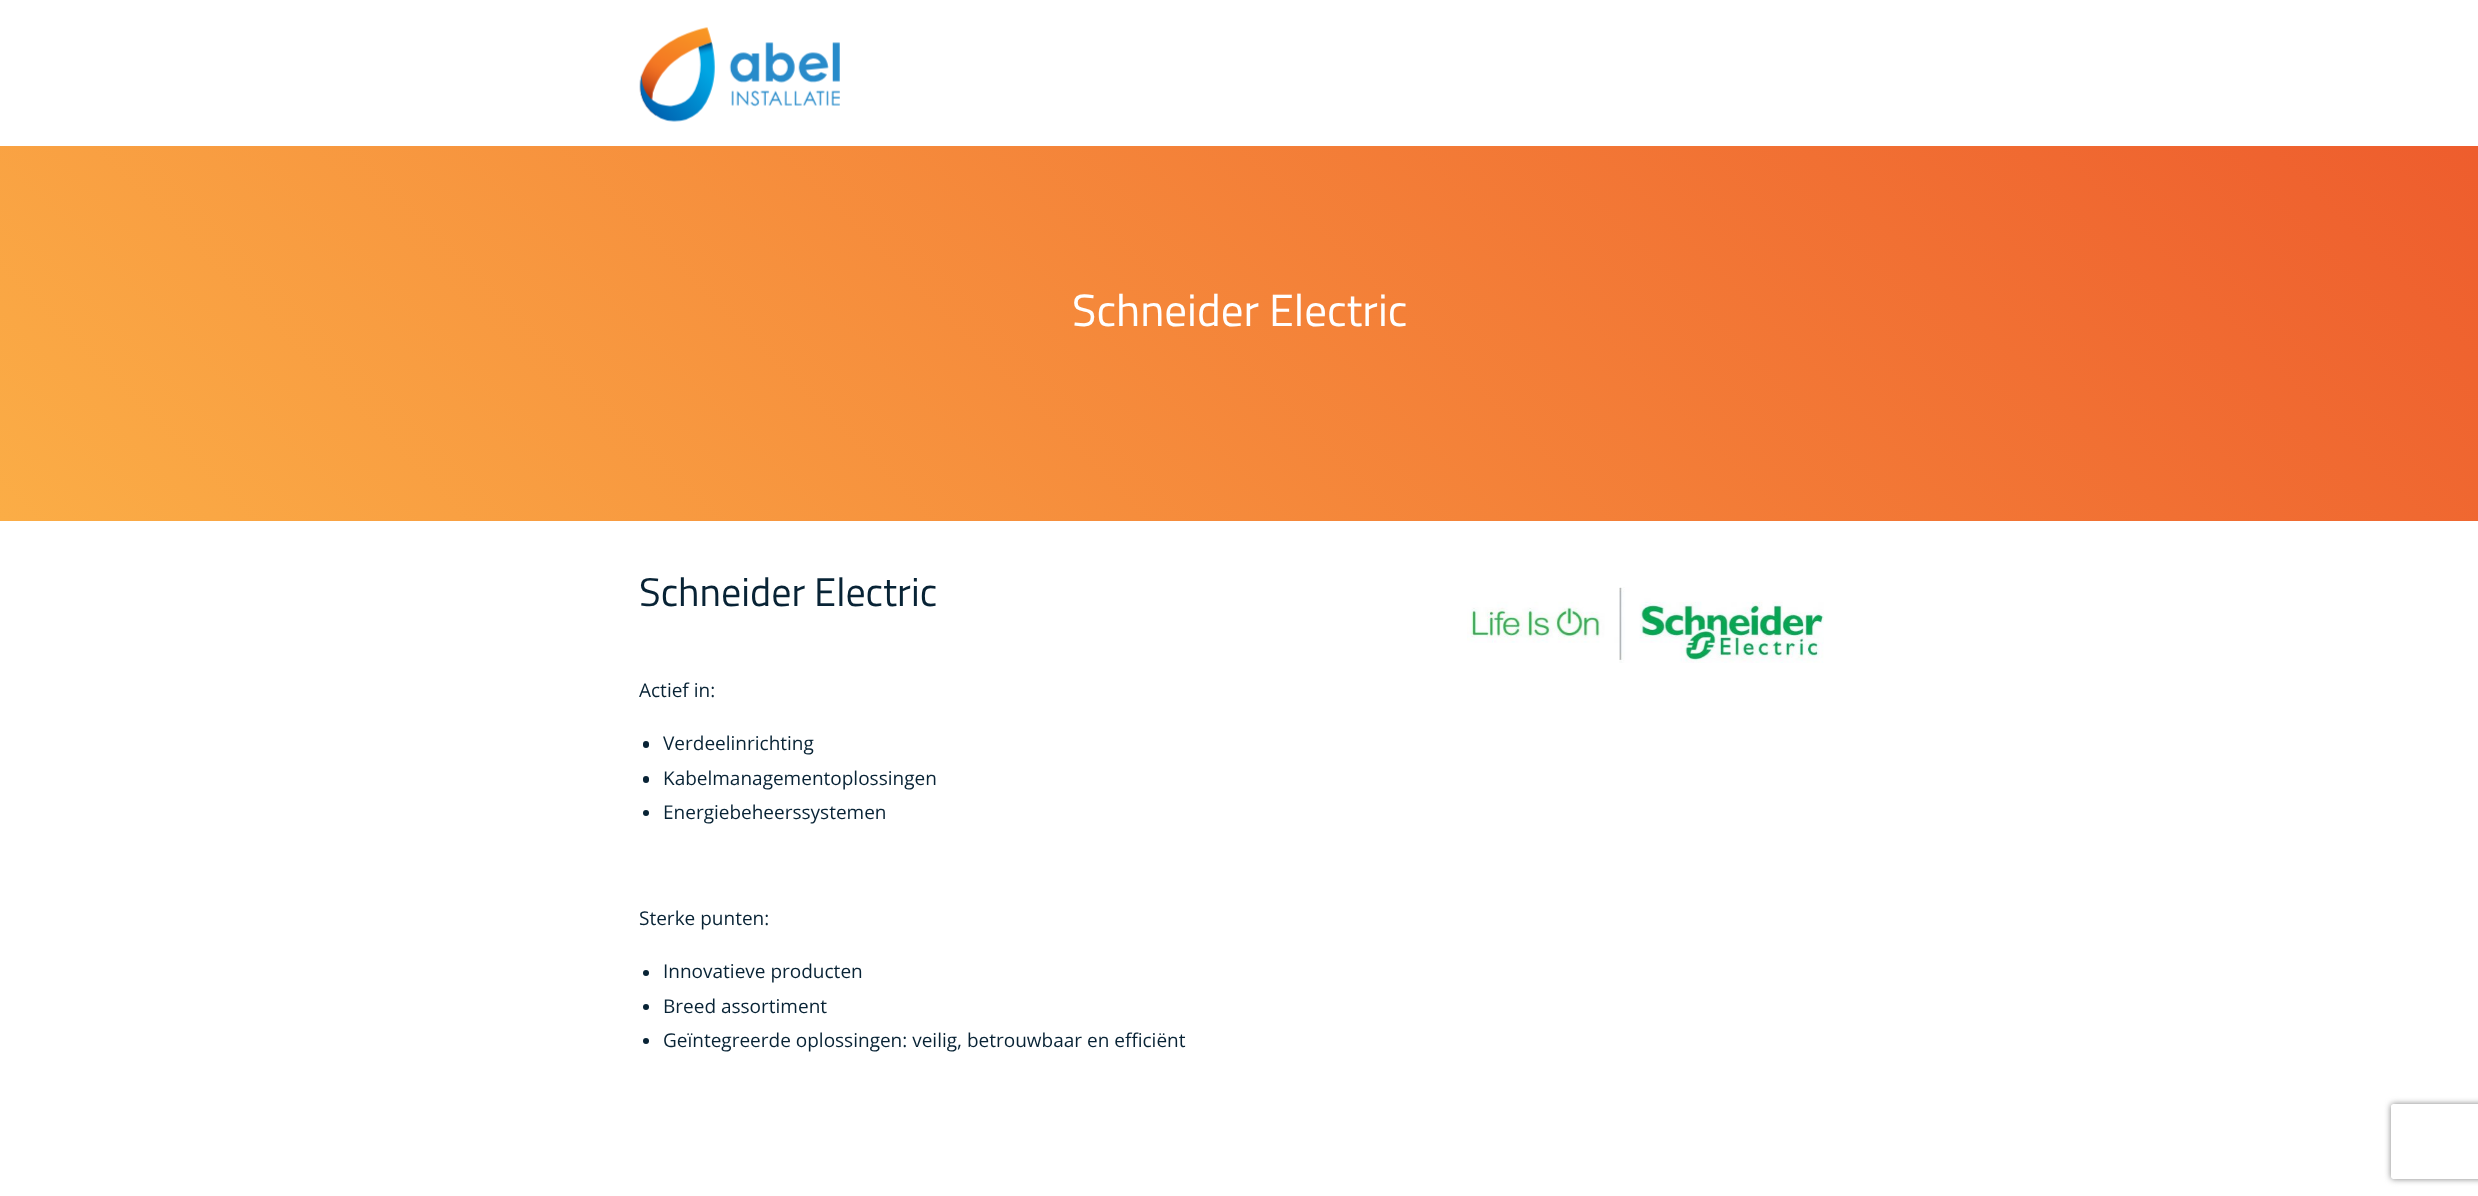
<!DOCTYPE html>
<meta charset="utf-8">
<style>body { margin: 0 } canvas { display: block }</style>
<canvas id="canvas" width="2478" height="1196"></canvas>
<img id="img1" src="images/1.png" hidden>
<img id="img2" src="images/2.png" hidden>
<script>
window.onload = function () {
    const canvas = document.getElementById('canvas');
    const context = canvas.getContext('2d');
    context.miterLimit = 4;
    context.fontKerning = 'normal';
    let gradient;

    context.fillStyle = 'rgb(255, 255, 255)';
    context.fillRect(0, 0, 2478, 1196);
    context.drawImage(document.getElementById('img1'), 639, 27, 201, 95);
    gradient = context.createLinearGradient(1953, -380, 526, 1047);
    gradient.addColorStop(0, 'rgb(238, 93, 45)');
    gradient.addColorStop(1, 'rgb(251, 173, 70)');
    context.fillStyle = gradient;
    context.fillRect(0, 146, 2478, 375);
    context.fillStyle = 'rgb(8, 35, 53)';
    context.beginPath();
    context.roundRect(643, 741, 6, 7, 3);
    context.fill();
    context.beginPath();
    context.roundRect(643, 776, 6, 7, 3);
    context.fill();
    context.beginPath();
    context.arc(646, 813, 3, 0, 2 * Math.PI);
    context.fill();
    context.beginPath();
    context.arc(646, 973, 3, 0, 2 * Math.PI);
    context.fill();
    context.beginPath();
    context.arc(646, 1007, 3, 0, 2 * Math.PI);
    context.fill();
    context.beginPath();
    context.arc(646, 1041, 3, 0, 2 * Math.PI);
    context.fill();
    context.drawImage(document.getElementById('img2'), 1467, 587, 357, 76);
    context.save();
    context.beginPath();
    context.moveTo(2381, 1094);
    context.lineTo(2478, 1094);
    context.lineTo(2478, 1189);
    context.lineTo(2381, 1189);
    context.closePath();
    context.moveTo(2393.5, 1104);
    context.lineTo(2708.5, 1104);
    context.bezierCurveTo(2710, 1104, 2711, 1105, 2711, 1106.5);
    context.lineTo(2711, 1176.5);
    context.bezierCurveTo(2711, 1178, 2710, 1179, 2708.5, 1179);
    context.lineTo(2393.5, 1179);
    context.bezierCurveTo(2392, 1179, 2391, 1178, 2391, 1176.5);
    context.lineTo(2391, 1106.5);
    context.bezierCurveTo(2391, 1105, 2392, 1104, 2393.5, 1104);
    context.closePath();
    context.clip('evenodd');
    context.fillStyle = 'rgb(128, 128, 128)';
    context.filter = 'blur(3px)';
    context.beginPath();
    context.roundRect(2391, 1104, 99, 75, 2.5);
    context.fill();
    context.filter = 'none';
    context.restore();
    context.font = '45px Titillium Web';
    context.fillStyle = 'rgb(255, 255, 255)';
    context.fillText('Schneider Electric', 1072, 326);
    context.font = '40px Titillium Web';
    context.fillStyle = 'rgb(8, 35, 53)';
    context.fillText('Schneider Electric', 639, 606);
    context.font = '19px Open Sans';
    context.fillText('Actief in:', 639, 697);
    context.fillText('Verdeelinrichting', 663, 750);
    context.fillText('Kabelmanagementoplossingen', 663, 785);
    context.fillText('Energiebeheerssystemen', 663, 819);
    context.fillText('Sterke punten:', 639, 925);
    context.fillText('Innovatieve producten', 663, 978);
    context.fillText('Breed assortiment', 663, 1013);
    context.fillText('Geïntegreerde oplossingen: veilig, betrouwbaar en efficiënt', 663, 1047);
};
</script>
